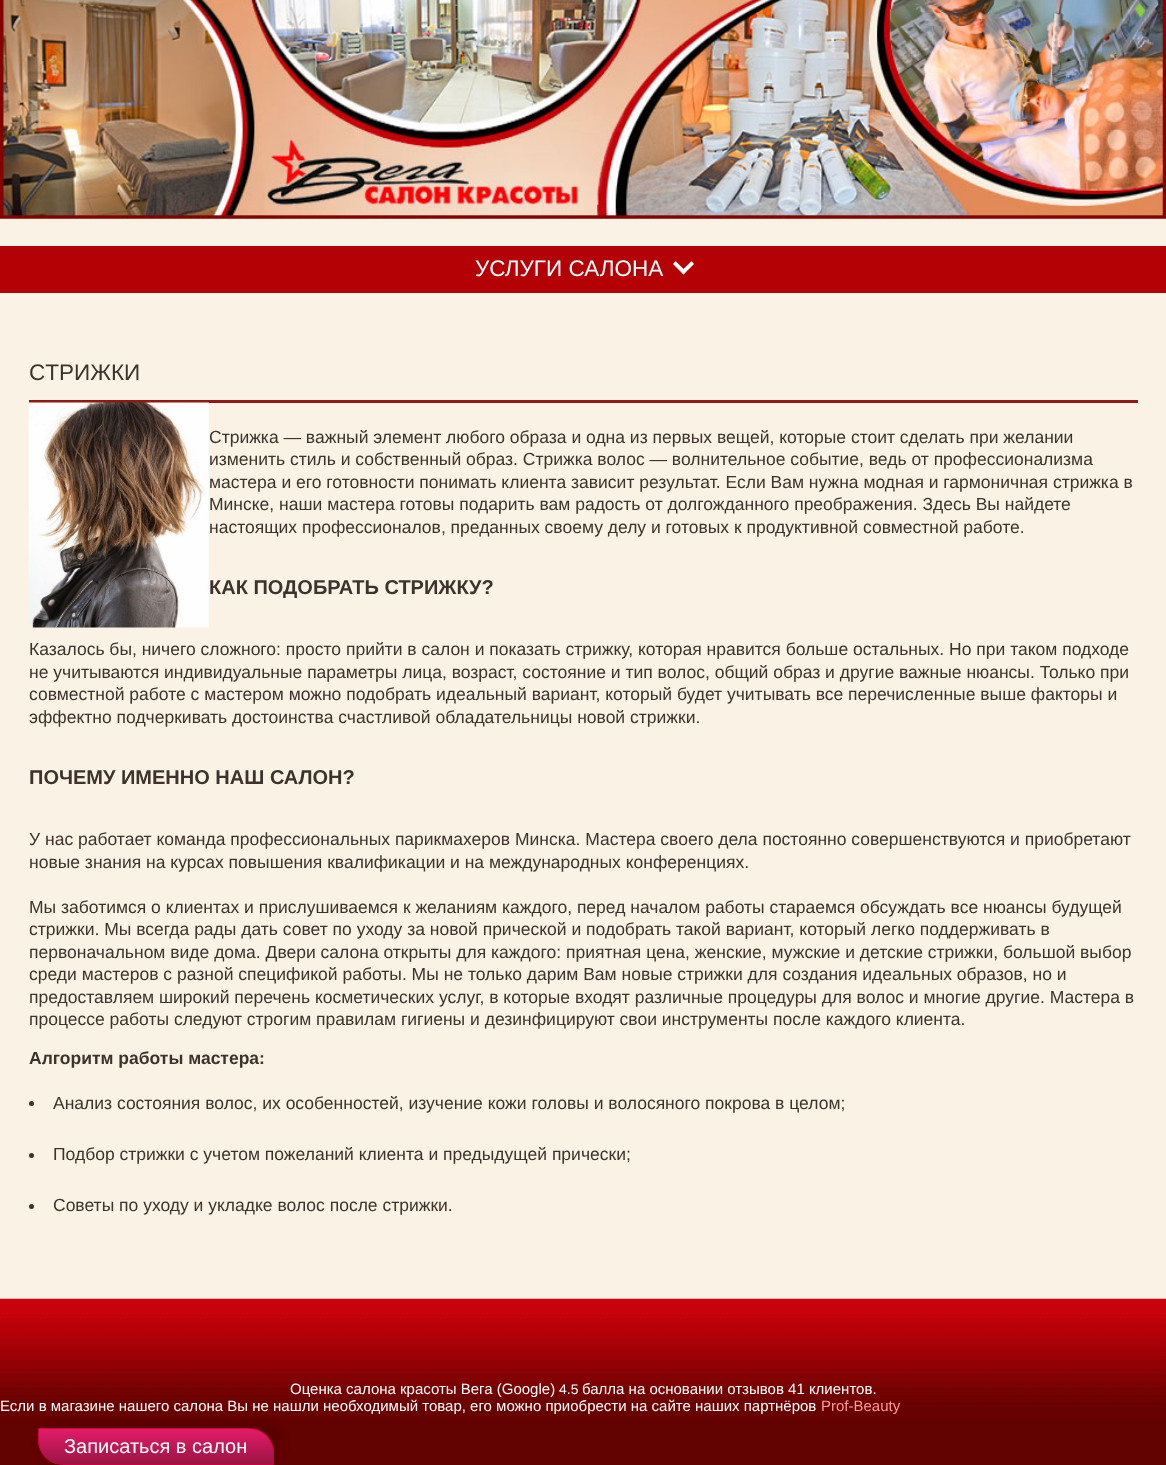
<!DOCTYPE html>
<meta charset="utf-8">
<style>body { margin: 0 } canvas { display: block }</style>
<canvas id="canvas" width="1166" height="1465"></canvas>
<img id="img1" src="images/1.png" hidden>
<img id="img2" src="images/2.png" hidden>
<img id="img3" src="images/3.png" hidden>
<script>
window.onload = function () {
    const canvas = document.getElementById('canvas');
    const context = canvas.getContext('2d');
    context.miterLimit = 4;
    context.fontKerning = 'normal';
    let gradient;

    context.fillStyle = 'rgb(250, 242, 228)';
    context.fillRect(0, 0, 1166, 1465);
    context.drawImage(document.getElementById('img1'), 0, 0, 1166, 219);
    context.fillStyle = 'rgb(180, 1, 6)';
    context.fillRect(0, 246, 1166, 47);
    context.fillStyle = 'rgb(255, 255, 255)';
    context.beginPath();
    context.moveTo(691.5, 261);
    context.lineTo(694, 264);
    context.lineTo(683.5, 274.5);
    context.lineTo(681, 271.5);
    context.closePath();
    context.fill();
    context.beginPath();
    context.moveTo(675.5, 261);
    context.lineTo(686, 271.5);
    context.lineTo(683.5, 274.5);
    context.lineTo(673, 264);
    context.closePath();
    context.fill();
    context.fillStyle = 'rgb(148, 23, 24)';
    context.fillRect(29, 400, 1109, 3);
    context.drawImage(document.getElementById('img2'), 28, 402, 181, 226);
    context.fillStyle = 'rgb(61, 50, 44)';
    context.beginPath();
    context.arc(31.5, 1103.5, 2.5, 0, 2 * Math.PI);
    context.fill();
    context.beginPath();
    context.arc(31.5, 1155.5, 2.5, 0, 2 * Math.PI);
    context.fill();
    context.beginPath();
    context.arc(31.5, 1206.5, 2.5, 0, 2 * Math.PI);
    context.fill();
    context.fillStyle = 'rgb(98, 2, 1)';
    context.fillRect(0, 1299, 1166, 166);
    context.drawImage(document.getElementById('img3'), 0, 1298, 1166, 121);
    context.fillStyle = 'rgba(0, 0, 0, 0.12)';
    context.filter = 'blur(5.5px)';
    context.beginPath();
    context.roundRect(41, 1423, 239, 40, 26);
    context.fill();
    context.filter = 'none';
    context.save();
    context.beginPath();
    context.roundRect(38, 1428, 236, 37, [0, 25, 0, 25]);
    context.clip();
    gradient = context.createLinearGradient(156, 1429, 156, 1464);
    gradient.addColorStop(0, 'rgb(228, 27, 104)');
    gradient.addColorStop(1, 'rgb(154, 21, 68)');
    context.fillStyle = gradient;
    context.fillRect(38, 1429, 236, 35);
    context.restore();
    context.beginPath();
    context.roundRect(38.5, 1428.5, 235, 36, [0, 24.5, 0, 24.5]);
    context.strokeStyle = 'rgb(205, 0, 64)';
    context.stroke();
    context.font = '22.5px Liberation Sans';
    context.fillStyle = 'rgb(255, 255, 255)';
    context.fillText('УСЛУГИ САЛОНА', 475, 276);
    context.fillStyle = 'rgb(61, 50, 44)';
    context.fillText('CТРИЖКИ', 29, 380);
    context.font = '17.5px Liberation Sans';
    context.fillText('Стрижка — важный элемент любого образа и одна из первых вещей, которые стоит сделать при желании', 209, 443);
    context.fillText('изменить стиль и собственный образ. Стрижка волос — волнительное событие, ведь от профессионализма', 209, 465);
    context.fillText('мастера и его готовности понимать клиента зависит результат. Если Вам нужна модная и гармоничная стрижка в', 209, 488);
    context.fillText('Минске, наши мастера готовы подарить вам радость от долгожданного преображения. Здесь Вы найдете', 209, 510);
    context.fillText('настоящих профессионалов, преданных своему делу и готовых к продуктивной совместной работе.', 209, 533);
    context.font = 'bold 20px Liberation Sans';
    context.fillText('КАК ПОДОБРАТЬ СТРИЖКУ?', 209, 594);
    context.font = '17.5px Liberation Sans';
    context.fillText('Казалось бы, ничего сложного: просто прийти в салон и показать стрижку, которая нравится больше остальных. Но при таком подходе', 29, 655);
    context.fillText('не учитываются индивидуальные параметры лица, возраст, состояние и тип волос, общий образ и другие важные нюансы. Только при', 29, 678);
    context.fillText('совместной работе с мастером можно подобрать идеальный вариант, который будет учитывать все перечисленные выше факторы и', 29, 700);
    context.fillText('эффектно подчеркивать достоинства счастливой обладательницы новой стрижки.', 29, 723);
    context.font = 'bold 20px Liberation Sans';
    context.fillText('ПОЧЕМУ ИМЕННО НАШ САЛОН?', 29, 784);
    context.font = '17.5px Liberation Sans';
    context.fillText('У нас работает команда профессиональных парикмахеров Минска. Мастера своего дела постоянно совершенствуются и приобретают', 29, 845);
    context.fillText('новые знания на курсах повышения квалификации и на международных конференциях.', 29, 868);
    context.fillText('Мы заботимся о клиентах и прислушиваемся к желаниям каждого, перед началом работы стараемся обсуждать все нюансы будущей', 29, 913);
    context.fillText('стрижки. Мы всегда рады дать совет по уходу за новой прической и подобрать такой вариант, который легко поддерживать в', 29, 935);
    context.fillText('первоначальном виде дома. Двери салона открыты для каждого: приятная цена, женские, мужские и детские стрижки, большой выбор', 29, 958);
    context.fillText('среди мастеров с разной спецификой работы. Мы не только дарим Вам новые стрижки для создания идеальных образов, но и', 29, 980);
    context.fillText('предоставляем широкий перечень косметических услуг, в которые входят различные процедуры для волос и многие другие. Мастера в', 29, 1003);
    context.fillText('процессе работы следуют строгим правилам гигиены и дезинфицируют свои инструменты после каждого клиента.', 29, 1025);
    context.font = 'bold 17.5px Liberation Sans';
    context.fillText('Алгоритм работы мастера:', 29, 1064);
    context.font = '17.5px Liberation Sans';
    context.fillText('Анализ состояния волос, их особенностей, изучение кожи головы и волосяного покрова в целом;', 53, 1109);
    context.fillText('Подбор стрижки с учетом пожеланий клиента и предыдущей прически;', 53, 1160);
    context.fillText('Советы по уходу и укладке волос после стрижки.', 53, 1211);
    context.font = '15px Liberation Sans';
    context.fillStyle = 'rgb(255, 255, 255)';
    context.fillText('Oценка салона красоты Bега (Google)', 290, 1394);
    context.font = '14px Liberation Sans';
    context.fillText('4.5', 559, 1394);
    context.font = '15px Liberation Sans';
    context.fillText('балла на основании отзывов 41 клиентов.', 582, 1394);
    context.fillText('Если в магазине нашего салона Вы не нашли необходимый товар, его можно приобрести на сайте наших партнёров', 0, 1411);
    context.fillStyle = 'rgb(255, 153, 154)';
    context.fillText('Prof-Beauty', 821, 1411);
    context.font = '20px Liberation Sans';
    context.fillStyle = 'rgb(255, 255, 255)';
    context.fillText('Записаться в салон', 64, 1453);
};
</script>
